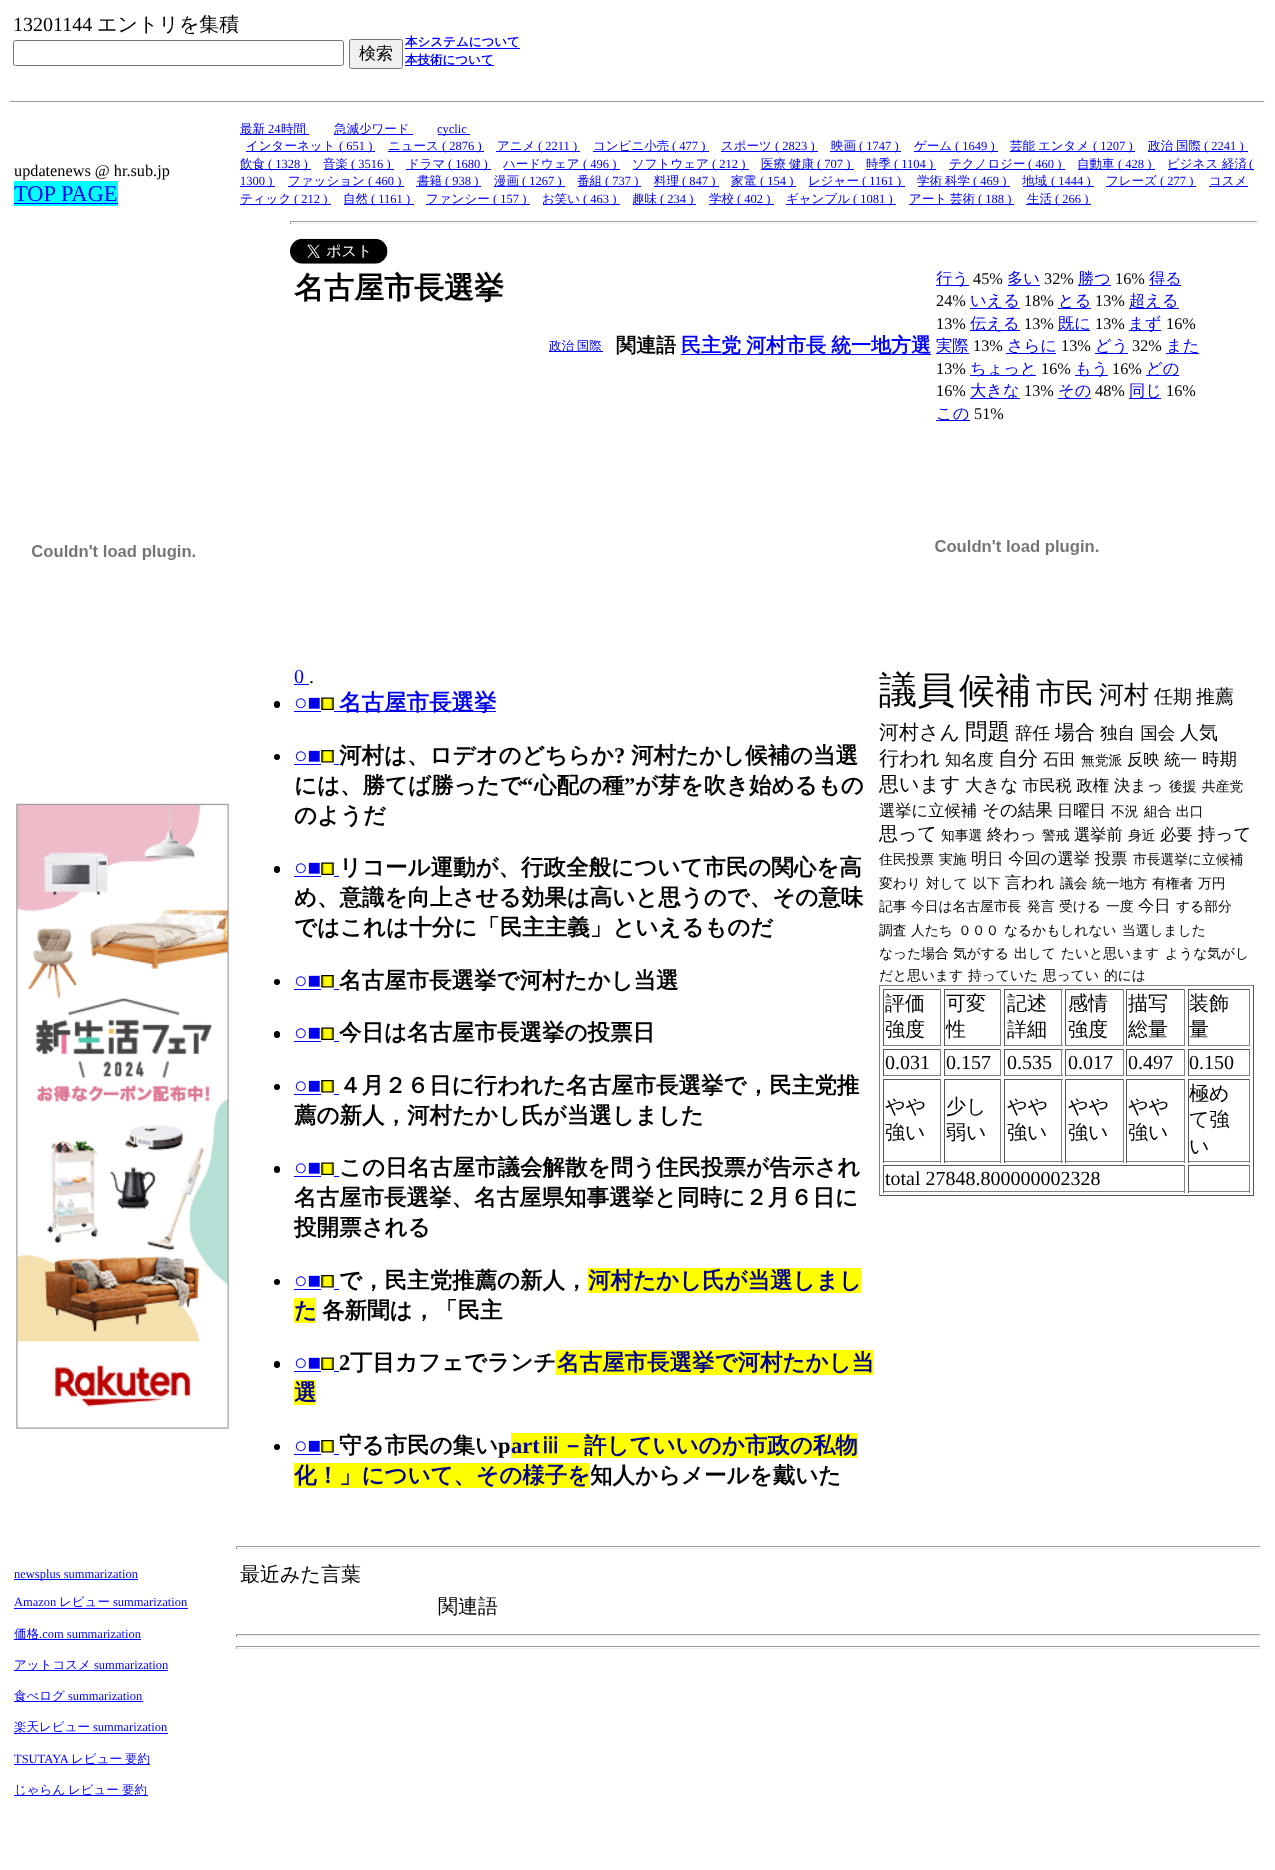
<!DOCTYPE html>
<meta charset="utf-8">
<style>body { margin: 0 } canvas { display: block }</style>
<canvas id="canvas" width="1275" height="1870"></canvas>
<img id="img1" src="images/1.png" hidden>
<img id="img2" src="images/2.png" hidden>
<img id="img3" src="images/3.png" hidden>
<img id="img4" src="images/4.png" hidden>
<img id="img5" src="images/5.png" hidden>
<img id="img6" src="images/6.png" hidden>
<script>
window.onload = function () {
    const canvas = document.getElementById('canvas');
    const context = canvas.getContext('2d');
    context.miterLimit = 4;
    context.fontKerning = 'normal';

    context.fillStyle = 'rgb(255, 255, 255)';
    context.fillRect(0, 0, 1275, 1870);
    context.beginPath();
    context.roundRect(13.5, 40.5, 330, 25, 2);
    context.strokeStyle = 'rgb(118, 118, 118)';
    context.stroke();
    context.fillStyle = 'rgb(239, 239, 239)';
    context.beginPath();
    context.roundRect(349.5, 39.5, 53, 29, 2);
    context.fill();
    context.stroke();
    context.fillStyle = 'rgb(0, 0, 255)';
    context.fillRect(405, 48, 115, 1);
    context.fillRect(405, 65, 89, 1);
    context.fillStyle = 'rgb(159, 159, 159)';
    context.fillRect(10, 101, 1255, 1);
    context.fillStyle = 'rgb(238, 238, 238)';
    context.fillRect(1264, 101, 1, 1);
    context.fillStyle = 'rgb(0, 255, 255)';
    context.fillRect(14, 181, 104, 25);
    context.fillStyle = 'rgb(0, 0, 255)';
    context.fillRect(14, 203, 104, 1);
    context.drawImage(document.getElementById('img1'), 32, 545, 163, 15);
    context.drawImage(document.getElementById('img2'), 16, 803, 213, 626);
    context.fillRect(14, 1579, 124, 1);
    context.fillRect(14, 1608, 174, 1);
    context.fillRect(14, 1639, 127, 1);
    context.fillRect(14, 1670, 154, 1);
    context.fillRect(14, 1701, 129, 1);
    context.fillRect(14, 1733, 154, 1);
    context.fillRect(14, 1764, 136, 1);
    context.fillRect(14, 1795, 134, 1);
    context.fillStyle = 'rgb(0, 0, 238)';
    context.fillRect(240, 134, 69, 1);
    context.fillRect(334, 134, 79, 1);
    context.fillRect(438, 134, 32, 1);
    context.fillRect(246, 151, 129, 1);
    context.fillRect(388, 151, 96, 1);
    context.fillRect(496, 151, 84, 1);
    context.fillRect(593, 151, 116, 1);
    context.fillRect(721, 151, 97, 1);
    context.fillRect(830, 151, 71, 1);
    context.fillRect(914, 151, 84, 1);
    context.fillRect(1010, 151, 125, 1);
    context.fillRect(1148, 151, 100, 1);
    context.fillRect(240, 169, 71, 1);
    context.fillRect(324, 169, 70, 1);
    context.fillRect(406, 169, 85, 1);
    context.fillRect(504, 169, 116, 1);
    context.fillRect(633, 169, 116, 1);
    context.fillRect(761, 169, 93, 1);
    context.fillRect(866, 169, 70, 1);
    context.fillRect(949, 169, 116, 1);
    context.fillRect(1078, 169, 77, 1);
    context.fillRect(1168, 169, 86, 1);
    context.fillRect(240, 186, 35, 1);
    context.fillRect(288, 186, 116, 1);
    context.fillRect(416, 186, 65, 1);
    context.fillRect(494, 186, 71, 1);
    context.fillRect(578, 186, 63, 1);
    context.fillRect(654, 186, 65, 1);
    context.fillRect(731, 186, 65, 1);
    context.fillRect(809, 186, 96, 1);
    context.fillRect(918, 186, 92, 1);
    context.fillRect(1023, 186, 71, 1);
    context.fillRect(1106, 186, 90, 1);
    context.fillRect(1209, 186, 39, 1);
    context.fillRect(240, 204, 91, 1);
    context.fillRect(344, 204, 70, 1);
    context.fillRect(426, 204, 104, 1);
    context.fillRect(543, 204, 77, 1);
    context.fillRect(633, 204, 63, 1);
    context.fillRect(709, 204, 65, 1);
    context.fillRect(786, 204, 110, 1);
    context.fillRect(909, 204, 105, 1);
    context.fillRect(1026, 204, 65, 1);
    context.fillStyle = 'rgb(159, 159, 159)';
    context.fillRect(290, 221, 968, 1);
    context.fillStyle = 'rgb(238, 238, 238)';
    context.fillRect(1256, 221, 1, 3);
    context.fillRect(290, 223, 968, 1);
    context.fillStyle = 'rgb(159, 159, 159)';
    context.fillRect(290, 221, 1, 3);
    context.drawImage(document.getElementById('img3'), 290, 238, 98, 26);
    context.fillStyle = 'rgb(0, 0, 238)';
    context.fillRect(936, 285, 33, 1);
    context.fillRect(1008, 285, 32, 1);
    context.fillRect(1078, 285, 33, 1);
    context.fillRect(1149, 285, 32, 1);
    context.fillRect(970, 308, 50, 1);
    context.fillRect(1058, 308, 33, 1);
    context.fillRect(1129, 308, 50, 1);
    context.fillRect(970, 330, 50, 1);
    context.fillRect(1058, 330, 32, 1);
    context.fillRect(1129, 330, 32, 1);
    context.fillRect(936, 353, 33, 1);
    context.fillRect(1006, 353, 50, 1);
    context.fillRect(1095, 353, 33, 1);
    context.fillRect(1166, 353, 33, 1);
    context.fillRect(970, 375, 66, 1);
    context.fillRect(1075, 375, 33, 1);
    context.fillRect(1146, 375, 33, 1);
    context.fillRect(970, 398, 50, 1);
    context.fillRect(1058, 398, 33, 1);
    context.fillRect(1129, 398, 32, 1);
    context.fillRect(936, 420, 34, 1);
    context.fillRect(549, 351, 54, 1);
    context.fillStyle = 'rgb(0, 0, 255)';
    context.fillRect(681, 354, 250, 1);
    context.drawImage(document.getElementById('img4'), 935, 540, 164, 15);
    context.fillStyle = 'rgb(0, 0, 238)';
    context.fillRect(294, 684, 15, 1);
    context.fillStyle = 'rgb(0, 0, 0)';
    context.beginPath();
    context.roundRect(274, 701, 6, 7, 3);
    context.fill();
    context.fillStyle = 'rgb(0, 0, 238)';
    context.fillRect(294, 711, 27, 1);
    context.drawImage(document.getElementById('img5'), 321, 697, 13, 13);
    context.fillRect(334, 711, 162, 1);
    context.fillStyle = 'rgb(0, 0, 0)';
    context.beginPath();
    context.arc(277, 757, 3, 0, 2 * Math.PI);
    context.fill();
    context.fillStyle = 'rgb(0, 0, 238)';
    context.fillRect(294, 764, 27, 1);
    context.drawImage(document.getElementById('img6'), 321, 750, 13, 13);
    context.fillRect(334, 764, 5, 1);
    context.fillStyle = 'rgb(0, 0, 0)';
    context.beginPath();
    context.roundRect(274, 866, 6, 7, 3);
    context.fill();
    context.fillStyle = 'rgb(0, 0, 238)';
    context.fillRect(294, 876, 27, 1);
    context.drawImage(document.getElementById('img5'), 321, 862, 13, 13);
    context.fillRect(334, 876, 5, 1);
    context.fillStyle = 'rgb(0, 0, 0)';
    context.beginPath();
    context.arc(277, 982, 3, 0, 2 * Math.PI);
    context.fill();
    context.fillStyle = 'rgb(0, 0, 238)';
    context.fillRect(294, 989, 27, 1);
    context.drawImage(document.getElementById('img6'), 321, 975, 13, 13);
    context.fillRect(334, 989, 5, 1);
    context.fillStyle = 'rgb(0, 0, 0)';
    context.beginPath();
    context.roundRect(274, 1031, 6, 7, 3);
    context.fill();
    context.fillStyle = 'rgb(0, 0, 238)';
    context.fillRect(294, 1041, 27, 1);
    context.drawImage(document.getElementById('img5'), 321, 1027, 13, 13);
    context.fillRect(334, 1041, 5, 1);
    context.fillStyle = 'rgb(0, 0, 0)';
    context.beginPath();
    context.arc(277, 1087, 3, 0, 2 * Math.PI);
    context.fill();
    context.fillStyle = 'rgb(0, 0, 238)';
    context.fillRect(294, 1094, 27, 1);
    context.drawImage(document.getElementById('img6'), 321, 1080, 13, 13);
    context.fillRect(334, 1094, 5, 1);
    context.fillStyle = 'rgb(0, 0, 0)';
    context.beginPath();
    context.roundRect(274, 1166, 6, 7, 3);
    context.fill();
    context.fillStyle = 'rgb(0, 0, 238)';
    context.fillRect(294, 1176, 27, 1);
    context.drawImage(document.getElementById('img5'), 321, 1162, 13, 13);
    context.fillRect(334, 1176, 5, 1);
    context.fillStyle = 'rgb(0, 0, 0)';
    context.beginPath();
    context.arc(277, 1282, 3, 0, 2 * Math.PI);
    context.fill();
    context.fillStyle = 'rgb(0, 0, 238)';
    context.fillRect(294, 1289, 27, 1);
    context.drawImage(document.getElementById('img6'), 321, 1275, 13, 13);
    context.fillRect(334, 1289, 5, 1);
    context.fillStyle = 'rgb(255, 255, 0)';
    context.fillRect(588, 1268, 273, 25);
    context.fillRect(294, 1298, 22, 25);
    context.fillStyle = 'rgb(0, 0, 0)';
    context.beginPath();
    context.roundRect(274, 1361, 6, 7, 3);
    context.fill();
    context.fillStyle = 'rgb(0, 0, 238)';
    context.fillRect(294, 1371, 27, 1);
    context.drawImage(document.getElementById('img5'), 321, 1357, 13, 13);
    context.fillRect(334, 1371, 5, 1);
    context.fillStyle = 'rgb(255, 255, 0)';
    context.fillRect(556, 1350, 318, 25);
    context.fillRect(294, 1380, 22, 25);
    context.fillStyle = 'rgb(0, 0, 0)';
    context.beginPath();
    context.arc(277, 1447, 3, 0, 2 * Math.PI);
    context.fill();
    context.fillStyle = 'rgb(0, 0, 238)';
    context.fillRect(294, 1454, 27, 1);
    context.drawImage(document.getElementById('img6'), 321, 1440, 13, 13);
    context.fillRect(334, 1454, 5, 1);
    context.fillStyle = 'rgb(255, 255, 0)';
    context.fillRect(511, 1433, 347, 25);
    context.fillRect(294, 1463, 296, 25);
    context.fillStyle = 'rgb(128, 128, 128)';
    context.fillRect(879, 985, 375, 1);
    context.fillStyle = 'rgb(85, 85, 85)';
    context.fillRect(1253, 985, 1, 211);
    context.fillRect(879, 1195, 375, 1);
    context.fillStyle = 'rgb(128, 128, 128)';
    context.fillRect(879, 985, 1, 211);
    context.fillStyle = 'rgb(85, 85, 85)';
    context.fillRect(883, 989, 58, 1);
    context.fillStyle = 'rgb(128, 128, 128)';
    context.fillRect(940, 989, 1, 57);
    context.fillRect(883, 1045, 58, 1);
    context.fillStyle = 'rgb(85, 85, 85)';
    context.fillRect(883, 989, 1, 57);
    context.fillRect(944, 989, 57, 1);
    context.fillStyle = 'rgb(128, 128, 128)';
    context.fillRect(1000, 989, 1, 57);
    context.fillRect(944, 1045, 57, 1);
    context.fillStyle = 'rgb(85, 85, 85)';
    context.fillRect(944, 989, 1, 57);
    context.fillRect(1004, 989, 59, 1);
    context.fillStyle = 'rgb(128, 128, 128)';
    context.fillRect(1061, 989, 1, 57);
    context.fillRect(1004, 1045, 59, 1);
    context.fillStyle = 'rgb(85, 85, 85)';
    context.fillRect(1004, 989, 1, 57);
    context.fillRect(1065, 989, 59, 1);
    context.fillStyle = 'rgb(128, 128, 128)';
    context.fillRect(1123, 989, 1, 57);
    context.fillRect(1065, 1045, 59, 1);
    context.fillStyle = 'rgb(85, 85, 85)';
    context.fillRect(1065, 989, 1, 57);
    context.fillRect(1126, 989, 59, 1);
    context.fillStyle = 'rgb(128, 128, 128)';
    context.fillRect(1184, 989, 1, 57);
    context.fillRect(1126, 1045, 59, 1);
    context.fillStyle = 'rgb(85, 85, 85)';
    context.fillRect(1126, 989, 1, 57);
    context.fillRect(1188, 989, 62, 1);
    context.fillStyle = 'rgb(128, 128, 128)';
    context.fillRect(1249, 989, 1, 57);
    context.fillRect(1188, 1045, 62, 1);
    context.fillStyle = 'rgb(85, 85, 85)';
    context.fillRect(1188, 989, 1, 57);
    context.fillRect(883, 1049, 58, 1);
    context.fillStyle = 'rgb(128, 128, 128)';
    context.fillRect(940, 1049, 1, 27);
    context.fillRect(883, 1075, 58, 1);
    context.fillStyle = 'rgb(85, 85, 85)';
    context.fillRect(883, 1049, 1, 27);
    context.fillRect(944, 1049, 57, 1);
    context.fillStyle = 'rgb(128, 128, 128)';
    context.fillRect(1000, 1049, 1, 27);
    context.fillRect(944, 1075, 57, 1);
    context.fillStyle = 'rgb(85, 85, 85)';
    context.fillRect(944, 1049, 1, 27);
    context.fillRect(1004, 1049, 59, 1);
    context.fillStyle = 'rgb(128, 128, 128)';
    context.fillRect(1061, 1049, 1, 27);
    context.fillRect(1004, 1075, 59, 1);
    context.fillStyle = 'rgb(85, 85, 85)';
    context.fillRect(1004, 1049, 1, 27);
    context.fillRect(1065, 1049, 59, 1);
    context.fillStyle = 'rgb(128, 128, 128)';
    context.fillRect(1123, 1049, 1, 27);
    context.fillRect(1065, 1075, 59, 1);
    context.fillStyle = 'rgb(85, 85, 85)';
    context.fillRect(1065, 1049, 1, 27);
    context.fillRect(1126, 1049, 59, 1);
    context.fillStyle = 'rgb(128, 128, 128)';
    context.fillRect(1184, 1049, 1, 27);
    context.fillRect(1126, 1075, 59, 1);
    context.fillStyle = 'rgb(85, 85, 85)';
    context.fillRect(1126, 1049, 1, 27);
    context.fillRect(1188, 1049, 62, 1);
    context.fillStyle = 'rgb(128, 128, 128)';
    context.fillRect(1249, 1049, 1, 27);
    context.fillRect(1188, 1075, 62, 1);
    context.fillStyle = 'rgb(85, 85, 85)';
    context.fillRect(1188, 1049, 1, 27);
    context.fillRect(883, 1079, 58, 1);
    context.fillStyle = 'rgb(128, 128, 128)';
    context.fillRect(940, 1079, 1, 84);
    context.fillRect(883, 1161, 58, 1);
    context.fillStyle = 'rgb(85, 85, 85)';
    context.fillRect(883, 1079, 1, 84);
    context.fillRect(944, 1079, 57, 1);
    context.fillStyle = 'rgb(128, 128, 128)';
    context.fillRect(1000, 1079, 1, 84);
    context.fillRect(944, 1161, 57, 1);
    context.fillStyle = 'rgb(85, 85, 85)';
    context.fillRect(944, 1079, 1, 84);
    context.fillRect(1004, 1079, 59, 1);
    context.fillStyle = 'rgb(128, 128, 128)';
    context.fillRect(1061, 1079, 1, 84);
    context.fillRect(1004, 1161, 59, 1);
    context.fillStyle = 'rgb(85, 85, 85)';
    context.fillRect(1004, 1079, 1, 84);
    context.fillRect(1065, 1079, 59, 1);
    context.fillStyle = 'rgb(128, 128, 128)';
    context.fillRect(1123, 1079, 1, 84);
    context.fillRect(1065, 1161, 59, 1);
    context.fillStyle = 'rgb(85, 85, 85)';
    context.fillRect(1065, 1079, 1, 84);
    context.fillRect(1126, 1079, 59, 1);
    context.fillStyle = 'rgb(128, 128, 128)';
    context.fillRect(1184, 1079, 1, 84);
    context.fillRect(1126, 1161, 59, 1);
    context.fillStyle = 'rgb(85, 85, 85)';
    context.fillRect(1126, 1079, 1, 84);
    context.fillRect(1188, 1079, 62, 1);
    context.fillStyle = 'rgb(128, 128, 128)';
    context.fillRect(1249, 1079, 1, 84);
    context.fillRect(1188, 1161, 62, 1);
    context.fillStyle = 'rgb(85, 85, 85)';
    context.fillRect(1188, 1079, 1, 84);
    context.fillRect(883, 1165, 302, 1);
    context.fillStyle = 'rgb(128, 128, 128)';
    context.fillRect(1184, 1165, 1, 28);
    context.fillRect(883, 1191, 302, 1);
    context.fillStyle = 'rgb(85, 85, 85)';
    context.fillRect(883, 1165, 1, 28);
    context.fillRect(1188, 1165, 62, 1);
    context.fillStyle = 'rgb(128, 128, 128)';
    context.fillRect(1249, 1165, 1, 28);
    context.fillRect(1188, 1191, 62, 1);
    context.fillStyle = 'rgb(85, 85, 85)';
    context.fillRect(1188, 1165, 1, 28);
    context.fillStyle = 'rgb(159, 159, 159)';
    context.fillRect(236, 1546, 1025, 1);
    context.fillStyle = 'rgb(238, 238, 238)';
    context.fillRect(1260, 1546, 1, 3);
    context.fillRect(236, 1548, 1025, 1);
    context.fillStyle = 'rgb(159, 159, 159)';
    context.fillRect(236, 1546, 1, 3);
    context.fillRect(236, 1634, 1025, 1);
    context.fillStyle = 'rgb(238, 238, 238)';
    context.fillRect(1260, 1634, 1, 3);
    context.fillRect(236, 1635, 1025, 1);
    context.fillStyle = 'rgb(159, 159, 159)';
    context.fillRect(236, 1634, 1, 3);
    context.fillRect(236, 1646, 1025, 1);
    context.fillStyle = 'rgb(238, 238, 238)';
    context.fillRect(1260, 1646, 1, 3);
    context.fillRect(236, 1648, 1025, 1);
    context.fillStyle = 'rgb(159, 159, 159)';
    context.fillRect(236, 1646, 1, 3);
    context.font = '20px Liberation Serif';
    context.fillStyle = 'rgb(0, 0, 0)';
    context.fillText('13201144', 13, 31);
    context.font = '500 20px WenQuanYi Zen Hei';
    context.fillText('エントリを集積', 97, 31);
    context.font = '500 17px WenQuanYi Zen Hei';
    context.fillText('検索', 359, 59);
    context.font = 'bold 12.5px WenQuanYi Zen Hei';
    context.fillStyle = 'rgb(0, 0, 255)';
    context.fillText('本システムについて', 405, 46);
    context.fillText('本技術について', 405, 64);
    context.font = '16.25px Liberation Serif';
    context.fillStyle = 'rgb(0, 0, 0)';
    context.fillText('updatenews @ hr.sub.jp', 14, 176);
    context.font = '22.5px Liberation Serif';
    context.fillStyle = 'rgb(0, 0, 255)';
    context.fillText('TOP PAGE', 14, 201);
    context.font = '12.5px Liberation Serif';
    context.fillText('newsplus summarization', 14, 1578);
    context.fillText('Amazon', 14, 1606);
    context.font = '500 12.5px WenQuanYi Zen Hei';
    context.fillText('レビュー', 59, 1606);
    context.font = '12.5px Liberation Serif';
    context.fillText('summarization', 113, 1606);
    context.font = '500 12.5px WenQuanYi Zen Hei';
    context.fillText('価格', 14, 1638);
    context.font = '12.5px Liberation Serif';
    context.fillText('.com summarization', 39, 1638);
    context.font = '500 12.5px WenQuanYi Zen Hei';
    context.fillText('アットコスメ', 14, 1669);
    context.font = '12.5px Liberation Serif';
    context.fillText('summarization', 94, 1669);
    context.font = '500 12.5px WenQuanYi Zen Hei';
    context.fillText('食べログ', 14, 1700);
    context.font = '12.5px Liberation Serif';
    context.fillText('summarization', 68, 1700);
    context.font = '500 12.5px WenQuanYi Zen Hei';
    context.fillText('楽天レビュー', 14, 1731);
    context.font = '12.5px Liberation Serif';
    context.fillText('summarization', 93, 1731);
    context.fillText('TSUTAYA', 14, 1763);
    context.font = '500 12.5px WenQuanYi Zen Hei';
    context.fillText('レビュー', 71, 1763);
    context.fillText('要約', 125, 1763);
    context.wordSpacing = '-1px';
    context.fillText('じゃらん レビュー', 14, 1794);
    context.wordSpacing = '0px';
    context.fillText('要約', 122, 1794);
    context.fillStyle = 'rgb(0, 0, 238)';
    context.fillText('最新', 240, 133);
    context.font = '12.5px Liberation Serif';
    context.fillText('24', 268, 133);
    context.font = '500 12.5px WenQuanYi Zen Hei';
    context.fillText('時間', 281, 133);
    context.fillText('急減少ワード', 334, 133);
    context.font = '12.5px Liberation Serif';
    context.fillText('cyclic', 437, 133);
    context.font = '500 12.5px WenQuanYi Zen Hei';
    context.fillText('インターネット', 246, 150);
    context.font = '12.5px Liberation Serif';
    context.fillText('( 651 )', 339, 150);
    context.font = '500 12.5px WenQuanYi Zen Hei';
    context.fillText('ニュース', 388, 150);
    context.font = '12.5px Liberation Serif';
    context.fillText('( 2876 )', 442, 150);
    context.font = '500 12.5px WenQuanYi Zen Hei';
    context.fillText('アニメ', 497, 150);
    context.font = '12.5px Liberation Serif';
    context.fillText('( 2211 )', 538, 150);
    context.font = '500 12.5px WenQuanYi Zen Hei';
    context.fillText('コンビニ小売', 593, 150);
    context.font = '12.5px Liberation Serif';
    context.fillText('( 477 )', 672, 150);
    context.font = '500 12.5px WenQuanYi Zen Hei';
    context.fillText('スポーツ', 721, 150);
    context.font = '12.5px Liberation Serif';
    context.fillText('( 2823 )', 775, 150);
    context.font = '500 12.5px WenQuanYi Zen Hei';
    context.fillText('映画', 831, 150);
    context.font = '12.5px Liberation Serif';
    context.fillText('( 1747 )', 859, 150);
    context.font = '500 12.5px WenQuanYi Zen Hei';
    context.fillText('ゲーム', 914, 150);
    context.font = '12.5px Liberation Serif';
    context.fillText('( 1649 )', 955, 150);
    context.font = '500 12.5px WenQuanYi Zen Hei';
    context.fillText('芸能', 1010, 150);
    context.fillText('エンタメ', 1038, 150);
    context.font = '12.5px Liberation Serif';
    context.fillText('( 1207 )', 1093, 150);
    context.font = '500 12.5px WenQuanYi Zen Hei';
    context.fillText('政治', 1148, 150);
    context.fillText('国際', 1176, 150);
    context.font = '12.5px Liberation Serif';
    context.fillText('( 2241 )', 1204, 150);
    context.font = '500 12.5px WenQuanYi Zen Hei';
    context.fillText('飲食', 240, 168);
    context.font = '12.5px Liberation Serif';
    context.fillText('( 1328 )', 268, 168);
    context.font = '500 12.5px WenQuanYi Zen Hei';
    context.fillText('音楽', 323, 168);
    context.font = '12.5px Liberation Serif';
    context.fillText('( 3516 )', 351, 168);
    context.font = '500 12.5px WenQuanYi Zen Hei';
    context.fillText('ドラマ', 407, 168);
    context.font = '12.5px Liberation Serif';
    context.fillText('( 1680 )', 448, 168);
    context.font = '500 12.5px WenQuanYi Zen Hei';
    context.fillText('ハードウェア', 503, 168);
    context.font = '12.5px Liberation Serif';
    context.fillText('( 496 )', 583, 168);
    context.font = '500 12.5px WenQuanYi Zen Hei';
    context.fillText('ソフトウェア', 632, 168);
    context.font = '12.5px Liberation Serif';
    context.fillText('( 212 )', 712, 168);
    context.font = '500 12.5px WenQuanYi Zen Hei';
    context.fillText('医療', 761, 168);
    context.fillText('健康', 789, 168);
    context.font = '12.5px Liberation Serif';
    context.fillText('( 707 )', 817, 168);
    context.font = '500 12.5px WenQuanYi Zen Hei';
    context.fillText('時季', 866, 168);
    context.font = '12.5px Liberation Serif';
    context.fillText('( 1104 )', 894, 168);
    context.font = '500 12.5px WenQuanYi Zen Hei';
    context.fillText('テクノロジー', 949, 168);
    context.font = '12.5px Liberation Serif';
    context.fillText('( 460 )', 1028, 168);
    context.font = '500 12.5px WenQuanYi Zen Hei';
    context.fillText('自動車', 1077, 168);
    context.font = '12.5px Liberation Serif';
    context.fillText('( 428 )', 1118, 168);
    context.font = '500 12.5px WenQuanYi Zen Hei';
    context.fillText('ビジネス 経済', 1167, 168);
    context.font = '12.5px Liberation Serif';
    context.fillText('(', 1249, 168);
    context.fillText('1300 )', 240, 185);
    context.font = '500 12.5px WenQuanYi Zen Hei';
    context.fillText('ファッション', 288, 185);
    context.font = '12.5px Liberation Serif';
    context.fillText('( 460 )', 368, 185);
    context.font = '500 12.5px WenQuanYi Zen Hei';
    context.fillText('書籍', 417, 185);
    context.font = '12.5px Liberation Serif';
    context.fillText('( 938 )', 445, 185);
    context.font = '500 12.5px WenQuanYi Zen Hei';
    context.fillText('漫画', 494, 185);
    context.font = '12.5px Liberation Serif';
    context.fillText('( 1267 )', 522, 185);
    context.font = '500 12.5px WenQuanYi Zen Hei';
    context.fillText('番組', 577, 185);
    context.font = '12.5px Liberation Serif';
    context.fillText('( 737 )', 605, 185);
    context.font = '500 12.5px WenQuanYi Zen Hei';
    context.fillText('料理', 654, 185);
    context.font = '12.5px Liberation Serif';
    context.fillText('( 847 )', 682, 185);
    context.font = '500 12.5px WenQuanYi Zen Hei';
    context.fillText('家電', 731, 185);
    context.font = '12.5px Liberation Serif';
    context.fillText('( 154 )', 760, 185);
    context.font = '500 12.5px WenQuanYi Zen Hei';
    context.fillText('レジャー', 808, 185);
    context.font = '12.5px Liberation Serif';
    context.fillText('( 1161 )', 862, 185);
    context.font = '500 12.5px WenQuanYi Zen Hei';
    context.fillText('学術', 917, 185);
    context.fillText('科学', 945, 185);
    context.font = '12.5px Liberation Serif';
    context.fillText('( 469 )', 973, 185);
    context.font = '500 12.5px WenQuanYi Zen Hei';
    context.fillText('地域', 1022, 185);
    context.font = '12.5px Liberation Serif';
    context.fillText('( 1444 )', 1051, 185);
    context.font = '500 12.5px WenQuanYi Zen Hei';
    context.fillText('フレーズ', 1106, 185);
    context.font = '12.5px Liberation Serif';
    context.fillText('( 277 )', 1160, 185);
    context.font = '500 12.5px WenQuanYi Zen Hei';
    context.fillText('コスメ', 1209, 185);
    context.fillText('ティック', 240, 203);
    context.font = '12.5px Liberation Serif';
    context.fillText('( 212 )', 294, 203);
    context.font = '500 12.5px WenQuanYi Zen Hei';
    context.fillText('自然', 343, 203);
    context.font = '12.5px Liberation Serif';
    context.fillText('( 1161 )', 371, 203);
    context.font = '500 12.5px WenQuanYi Zen Hei';
    context.fillText('ファンシー', 426, 203);
    context.font = '12.5px Liberation Serif';
    context.fillText('( 157 )', 493, 203);
    context.font = '500 12.5px WenQuanYi Zen Hei';
    context.fillText('お笑い', 542, 203);
    context.font = '12.5px Liberation Serif';
    context.fillText('( 463 )', 583, 203);
    context.font = '500 12.5px WenQuanYi Zen Hei';
    context.fillText('趣味', 632, 203);
    context.font = '12.5px Liberation Serif';
    context.fillText('( 234 )', 660, 203);
    context.font = '500 12.5px WenQuanYi Zen Hei';
    context.fillText('学校', 709, 203);
    context.font = '12.5px Liberation Serif';
    context.fillText('( 402 )', 737, 203);
    context.font = '500 12.5px WenQuanYi Zen Hei';
    context.fillText('ギャンブル', 786, 203);
    context.font = '12.5px Liberation Serif';
    context.fillText('( 1081 )', 853, 203);
    context.font = '500 12.5px WenQuanYi Zen Hei';
    context.fillText('アート', 909, 203);
    context.fillText('芸術', 950, 203);
    context.font = '12.5px Liberation Serif';
    context.fillText('( 188 )', 978, 203);
    context.font = '500 12.5px WenQuanYi Zen Hei';
    context.fillText('生活', 1027, 203);
    context.font = '12.5px Liberation Serif';
    context.fillText('( 266 )', 1055, 203);
    context.font = 'bold 30px WenQuanYi Zen Hei';
    context.fillStyle = 'rgb(0, 0, 0)';
    context.fillText('名古屋市長選挙', 294, 298);
    context.font = '500 16.25px WenQuanYi Zen Hei';
    context.fillStyle = 'rgb(0, 0, 238)';
    context.fillText('行う', 936, 284);
    context.font = '16.25px Liberation Serif';
    context.fillStyle = 'rgb(0, 0, 0)';
    context.fillText('45%', 973, 284);
    context.font = '500 16.25px WenQuanYi Zen Hei';
    context.fillStyle = 'rgb(0, 0, 238)';
    context.fillText('多い', 1007, 284);
    context.font = '16.25px Liberation Serif';
    context.fillStyle = 'rgb(0, 0, 0)';
    context.fillText('32%', 1044, 284);
    context.font = '500 16.25px WenQuanYi Zen Hei';
    context.fillStyle = 'rgb(0, 0, 238)';
    context.fillText('勝つ', 1078, 284);
    context.font = '16.25px Liberation Serif';
    context.fillStyle = 'rgb(0, 0, 0)';
    context.fillText('16%', 1115, 284);
    context.font = '500 16.25px WenQuanYi Zen Hei';
    context.fillStyle = 'rgb(0, 0, 238)';
    context.fillText('得る', 1149, 284);
    context.font = '16.25px Liberation Serif';
    context.fillStyle = 'rgb(0, 0, 0)';
    context.fillText('24%', 936, 306);
    context.font = '500 16.25px WenQuanYi Zen Hei';
    context.fillStyle = 'rgb(0, 0, 238)';
    context.fillText('いえる', 970, 306);
    context.font = '16.25px Liberation Serif';
    context.fillStyle = 'rgb(0, 0, 0)';
    context.fillText('18%', 1024, 306);
    context.font = '500 16.25px WenQuanYi Zen Hei';
    context.fillStyle = 'rgb(0, 0, 238)';
    context.fillText('とる', 1058, 306);
    context.font = '16.25px Liberation Serif';
    context.fillStyle = 'rgb(0, 0, 0)';
    context.fillText('13%', 1095, 306);
    context.font = '500 16.25px WenQuanYi Zen Hei';
    context.fillStyle = 'rgb(0, 0, 238)';
    context.fillText('超える', 1129, 306);
    context.font = '16.25px Liberation Serif';
    context.fillStyle = 'rgb(0, 0, 0)';
    context.fillText('13%', 936, 329);
    context.font = '500 16.25px WenQuanYi Zen Hei';
    context.fillStyle = 'rgb(0, 0, 238)';
    context.fillText('伝える', 970, 329);
    context.font = '16.25px Liberation Serif';
    context.fillStyle = 'rgb(0, 0, 0)';
    context.fillText('13%', 1024, 329);
    context.font = '500 16.25px WenQuanYi Zen Hei';
    context.fillStyle = 'rgb(0, 0, 238)';
    context.fillText('既に', 1058, 329);
    context.font = '16.25px Liberation Serif';
    context.fillStyle = 'rgb(0, 0, 0)';
    context.fillText('13%', 1095, 329);
    context.font = '500 16.25px WenQuanYi Zen Hei';
    context.fillStyle = 'rgb(0, 0, 238)';
    context.fillText('まず', 1128, 329);
    context.font = '16.25px Liberation Serif';
    context.fillStyle = 'rgb(0, 0, 0)';
    context.fillText('16%', 1166, 329);
    context.font = '500 16.25px WenQuanYi Zen Hei';
    context.fillStyle = 'rgb(0, 0, 238)';
    context.fillText('実際', 936, 351);
    context.font = '16.25px Liberation Serif';
    context.fillStyle = 'rgb(0, 0, 0)';
    context.fillText('13%', 973, 351);
    context.font = '500 16.25px WenQuanYi Zen Hei';
    context.fillStyle = 'rgb(0, 0, 238)';
    context.fillText('さらに', 1007, 351);
    context.font = '16.25px Liberation Serif';
    context.fillStyle = 'rgb(0, 0, 0)';
    context.fillText('13%', 1061, 351);
    context.font = '500 16.25px WenQuanYi Zen Hei';
    context.fillStyle = 'rgb(0, 0, 238)';
    context.fillText('どう', 1095, 351);
    context.font = '16.25px Liberation Serif';
    context.fillStyle = 'rgb(0, 0, 0)';
    context.fillText('32%', 1132, 351);
    context.font = '500 16.25px WenQuanYi Zen Hei';
    context.fillStyle = 'rgb(0, 0, 238)';
    context.fillText('また', 1166, 351);
    context.font = '16.25px Liberation Serif';
    context.fillStyle = 'rgb(0, 0, 0)';
    context.fillText('13%', 936, 374);
    context.font = '500 16.25px WenQuanYi Zen Hei';
    context.fillStyle = 'rgb(0, 0, 238)';
    context.fillText('ちょっと', 970, 374);
    context.font = '16.25px Liberation Serif';
    context.fillStyle = 'rgb(0, 0, 0)';
    context.fillText('16%', 1041, 374);
    context.font = '500 16.25px WenQuanYi Zen Hei';
    context.fillStyle = 'rgb(0, 0, 238)';
    context.fillText('もう', 1075, 374);
    context.font = '16.25px Liberation Serif';
    context.fillStyle = 'rgb(0, 0, 0)';
    context.fillText('16%', 1112, 374);
    context.font = '500 16.25px WenQuanYi Zen Hei';
    context.fillStyle = 'rgb(0, 0, 238)';
    context.fillText('どの', 1146, 374);
    context.font = '16.25px Liberation Serif';
    context.fillStyle = 'rgb(0, 0, 0)';
    context.fillText('16%', 936, 396);
    context.font = '500 16.25px WenQuanYi Zen Hei';
    context.fillStyle = 'rgb(0, 0, 238)';
    context.fillText('大きな', 970, 396);
    context.font = '16.25px Liberation Serif';
    context.fillStyle = 'rgb(0, 0, 0)';
    context.fillText('13%', 1024, 396);
    context.font = '500 16.25px WenQuanYi Zen Hei';
    context.fillStyle = 'rgb(0, 0, 238)';
    context.fillText('その', 1058, 396);
    context.font = '16.25px Liberation Serif';
    context.fillStyle = 'rgb(0, 0, 0)';
    context.fillText('48%', 1095, 396);
    context.font = '500 16.25px WenQuanYi Zen Hei';
    context.fillStyle = 'rgb(0, 0, 238)';
    context.fillText('同じ', 1129, 396);
    context.font = '16.25px Liberation Serif';
    context.fillStyle = 'rgb(0, 0, 0)';
    context.fillText('16%', 1166, 396);
    context.font = '500 16.25px WenQuanYi Zen Hei';
    context.fillStyle = 'rgb(0, 0, 238)';
    context.fillText('この', 936, 419);
    context.font = '16.25px Liberation Serif';
    context.fillStyle = 'rgb(0, 0, 0)';
    context.fillText('51%', 974, 419);
    context.wordSpacing = '-1px';
    context.font = '500 12.5px WenQuanYi Zen Hei';
    context.fillStyle = 'rgb(0, 0, 238)';
    context.fillText('政治 国際', 549, 350);
    context.wordSpacing = '0px';
    context.font = 'bold 20px WenQuanYi Zen Hei';
    context.fillStyle = 'rgb(0, 0, 0)';
    context.fillText('関連語', 616, 352);
    context.fillStyle = 'rgb(0, 0, 255)';
    context.fillText('民主党', 681, 352);
    context.fillText('河村市長', 746, 352);
    context.fillText('統一地方選', 831, 352);
    context.font = '20px Liberation Serif';
    context.fillStyle = 'rgb(0, 0, 238)';
    context.fillText('0', 294, 683);
    context.fillStyle = 'rgb(0, 0, 0)';
    context.fillText('.', 309, 683);
    context.font = 'bold 22.5px Liberation Serif';
    context.fillStyle = 'rgb(0, 0, 238)';
    context.fillText('○■', 294, 710);
    context.font = 'bold 22.5px WenQuanYi Zen Hei';
    context.fillText('名古屋市長選挙', 339, 710);
    context.font = 'bold 22.5px Liberation Serif';
    context.fillText('○■', 294, 763);
    context.font = 'bold 22.5px WenQuanYi Zen Hei';
    context.fillStyle = 'rgb(0, 0, 0)';
    context.fillText('河村は、ロデオのどちらか', 339, 763);
    context.font = 'bold 22.5px Liberation Serif';
    context.fillText('?', 614, 763);
    context.font = 'bold 22.5px WenQuanYi Zen Hei';
    context.fillText('河村たかし候補の当選', 631, 763);
    context.fillText('には、勝てば勝ったで', 294, 793);
    context.font = 'bold 22.5px Liberation Serif';
    context.fillText('“', 522, 793);
    context.font = 'bold 22.5px WenQuanYi Zen Hei';
    context.fillText('心配の種', 534, 793);
    context.font = 'bold 22.5px Liberation Serif';
    context.fillText('”', 624, 793);
    context.font = 'bold 22.5px WenQuanYi Zen Hei';
    context.fillText('が芽を吹き始めるもの', 635, 793);
    context.fillText('のようだ', 294, 823);
    context.font = 'bold 22.5px Liberation Serif';
    context.fillStyle = 'rgb(0, 0, 238)';
    context.fillText('○■', 294, 875);
    context.font = 'bold 22.5px WenQuanYi Zen Hei';
    context.fillStyle = 'rgb(0, 0, 0)';
    context.fillText('リコール運動が、行政全般について市民の関心を高', 339, 875);
    context.fillText('め、意識を向上させる効果は高いと思うので、その意味', 294, 905);
    context.fillText('ではこれは十分に「民主主義」といえるものだ', 294, 935);
    context.font = 'bold 22.5px Liberation Serif';
    context.fillStyle = 'rgb(0, 0, 238)';
    context.fillText('○■', 294, 988);
    context.font = 'bold 22.5px WenQuanYi Zen Hei';
    context.fillStyle = 'rgb(0, 0, 0)';
    context.fillText('名古屋市長選挙で河村たかし当選', 339, 988);
    context.font = 'bold 22.5px Liberation Serif';
    context.fillStyle = 'rgb(0, 0, 238)';
    context.fillText('○■', 294, 1040);
    context.font = 'bold 22.5px WenQuanYi Zen Hei';
    context.fillStyle = 'rgb(0, 0, 0)';
    context.fillText('今日は名古屋市長選挙の投票日', 339, 1040);
    context.font = 'bold 22.5px Liberation Serif';
    context.fillStyle = 'rgb(0, 0, 238)';
    context.fillText('○■', 294, 1093);
    context.font = 'bold 22.5px WenQuanYi Zen Hei';
    context.fillStyle = 'rgb(0, 0, 0)';
    context.fillText('４月２６日に行われた名古屋市長選挙で，民主党推', 339, 1093);
    context.fillText('薦の新人，河村たかし氏が当選しました', 294, 1123);
    context.font = 'bold 22.5px Liberation Serif';
    context.fillStyle = 'rgb(0, 0, 238)';
    context.fillText('○■', 294, 1175);
    context.font = 'bold 22.5px WenQuanYi Zen Hei';
    context.fillStyle = 'rgb(0, 0, 0)';
    context.fillText('この日名古屋市議会解散を問う住民投票が告示され', 339, 1175);
    context.fillText('名古屋市長選挙、名古屋県知事選挙と同時に２月６日に', 294, 1205);
    context.fillText('投開票される', 294, 1235);
    context.font = 'bold 22.5px Liberation Serif';
    context.fillStyle = 'rgb(0, 0, 238)';
    context.fillText('○■', 294, 1288);
    context.font = 'bold 22.5px WenQuanYi Zen Hei';
    context.fillStyle = 'rgb(0, 0, 0)';
    context.fillText('で，民主党推薦の新人，', 339, 1288);
    context.fillStyle = 'rgb(0, 0, 139)';
    context.fillText('河村たかし氏が当選しまし', 588, 1288);
    context.fillText('た', 294, 1318);
    context.fillStyle = 'rgb(0, 0, 0)';
    context.fillText('各新聞は，「民主', 322, 1318);
    context.font = 'bold 22.5px Liberation Serif';
    context.fillStyle = 'rgb(0, 0, 238)';
    context.fillText('○■', 294, 1370);
    context.fillStyle = 'rgb(0, 0, 0)';
    context.fillText('2', 339, 1370);
    context.font = 'bold 22.5px WenQuanYi Zen Hei';
    context.fillText('丁目カフェでランチ', 350, 1370);
    context.fillStyle = 'rgb(0, 0, 139)';
    context.fillText('名古屋市長選挙で河村たかし当', 557, 1370);
    context.fillText('選', 294, 1400);
    context.font = 'bold 22.5px Liberation Serif';
    context.fillStyle = 'rgb(0, 0, 238)';
    context.fillText('○■', 294, 1453);
    context.font = 'bold 22.5px WenQuanYi Zen Hei';
    context.fillStyle = 'rgb(0, 0, 0)';
    context.fillText('守る市民の集い', 339, 1453);
    context.font = 'bold 22.5px Liberation Serif';
    context.fillText('p', 498, 1453);
    context.fillStyle = 'rgb(0, 0, 139)';
    context.fillText('art', 511, 1453);
    context.font = 'bold 22.5px WenQuanYi Zen Hei';
    context.fillText('ⅲ－許していいのか市政の私物', 539, 1453);
    context.fillText('化！」について、その様子を', 294, 1483);
    context.fillStyle = 'rgb(0, 0, 0)';
    context.fillText('知人からメールを戴いた', 590, 1483);
    context.font = '500 38px WenQuanYi Zen Hei';
    context.fillText('議員', 879, 703);
    context.font = '500 36px WenQuanYi Zen Hei';
    context.fillText('候補', 959, 703);
    context.font = '500 29px WenQuanYi Zen Hei';
    context.fillText('市民', 1036, 703);
    context.font = '500 25px WenQuanYi Zen Hei';
    context.fillText('河村', 1099, 703);
    context.font = '500 19px WenQuanYi Zen Hei';
    context.fillText('任期', 1154, 703);
    context.fillText('推薦', 1196, 703);
    context.font = '500 20px WenQuanYi Zen Hei';
    context.fillText('河村さん', 879, 739);
    context.font = '500 22.5px WenQuanYi Zen Hei';
    context.fillText('問題', 965, 739);
    context.font = '500 17.5px WenQuanYi Zen Hei';
    context.fillText('辞任', 1015, 739);
    context.font = '500 20px WenQuanYi Zen Hei';
    context.fillText('場合', 1055, 739);
    context.font = '500 17.5px WenQuanYi Zen Hei';
    context.fillText('独自 国会', 1100, 739);
    context.font = '500 19px WenQuanYi Zen Hei';
    context.fillText('人気', 1180, 739);
    context.font = '500 20px WenQuanYi Zen Hei';
    context.fillText('行われ', 879, 765);
    context.font = '500 16.25px WenQuanYi Zen Hei';
    context.fillText('知名度', 945, 765);
    context.font = '500 20px WenQuanYi Zen Hei';
    context.fillText('自分', 998, 765);
    context.font = '500 16.25px WenQuanYi Zen Hei';
    context.fillText('石田', 1043, 765);
    context.font = '500 13.75px WenQuanYi Zen Hei';
    context.fillText('無党派', 1081, 765);
    context.font = '500 16.25px WenQuanYi Zen Hei';
    context.fillText('反映 統一', 1127, 765);
    context.font = '500 17.5px WenQuanYi Zen Hei';
    context.fillText('時期', 1202, 765);
    context.font = '500 20px WenQuanYi Zen Hei';
    context.fillText('思います', 879, 791);
    context.font = '500 17.5px WenQuanYi Zen Hei';
    context.fillText('大きな', 965, 791);
    context.font = '500 16.25px WenQuanYi Zen Hei';
    context.fillText('市民税 政権 決まっ', 1023, 791);
    context.font = '500 13.75px WenQuanYi Zen Hei';
    context.fillText('後援', 1169, 791);
    context.fillText('共産党', 1202, 791);
    context.font = '500 16.25px WenQuanYi Zen Hei';
    context.fillText('選挙に立候補', 879, 816);
    context.font = '500 17.5px WenQuanYi Zen Hei';
    context.fillText('その結果', 982, 816);
    context.font = '500 16.25px WenQuanYi Zen Hei';
    context.fillText('日曜日', 1057, 816);
    context.font = '500 13.75px WenQuanYi Zen Hei';
    context.fillText('不況', 1111, 816);
    context.fillText('組合', 1144, 816);
    context.fillText('出口', 1176, 816);
    context.font = '500 19px WenQuanYi Zen Hei';
    context.fillText('思って', 879, 840);
    context.font = '500 13.75px WenQuanYi Zen Hei';
    context.fillText('知事選', 941, 840);
    context.font = '500 16.25px WenQuanYi Zen Hei';
    context.fillText('終わっ', 987, 840);
    context.font = '500 13.75px WenQuanYi Zen Hei';
    context.fillText('警戒', 1042, 840);
    context.font = '500 16.25px WenQuanYi Zen Hei';
    context.fillText('選挙前', 1074, 840);
    context.font = '500 13.75px WenQuanYi Zen Hei';
    context.fillText('身近', 1128, 840);
    context.font = '500 16.25px WenQuanYi Zen Hei';
    context.fillText('必要', 1160, 840);
    context.font = '500 17.5px WenQuanYi Zen Hei';
    context.fillText('持って', 1198, 840);
    context.font = '500 13.75px WenQuanYi Zen Hei';
    context.fillText('住民投票', 879, 864);
    context.fillText('実施', 939, 864);
    context.font = '500 16.25px WenQuanYi Zen Hei';
    context.fillText('明日 今回の選挙 投票', 971, 864);
    context.font = '500 13.75px WenQuanYi Zen Hei';
    context.fillText('市長選挙に立候補', 1133, 864);
    context.fillText('変わり', 879, 888);
    context.fillText('対して', 926, 888);
    context.fillText('以下', 973, 888);
    context.font = '500 16.25px WenQuanYi Zen Hei';
    context.fillText('言われ', 1005, 888);
    context.font = '500 13.75px WenQuanYi Zen Hei';
    context.fillText('議会', 1060, 888);
    context.fillText('統一地方', 1092, 888);
    context.fillText('有権者', 1152, 888);
    context.fillText('万円', 1198, 888);
    context.fillText('記事', 879, 911);
    context.fillText('今日は名古屋市長', 911, 911);
    context.fillText('発言', 1027, 911);
    context.fillText('受ける', 1059, 911);
    context.fillText('一度', 1106, 911);
    context.font = '500 16.25px WenQuanYi Zen Hei';
    context.fillText('今日', 1138, 911);
    context.font = '500 13.75px WenQuanYi Zen Hei';
    context.fillText('する部分', 1176, 911);
    context.fillText('調査', 879, 935);
    context.fillText('人たち', 911, 935);
    context.fillText('０００', 958, 935);
    context.fillText('なるかもしれない', 1004, 935);
    context.fillText('当選しました', 1122, 935);
    context.fillText('なった場合', 879, 958);
    context.fillText('気がする', 953, 958);
    context.fillText('出して', 1014, 958);
    context.fillText('たいと思います', 1061, 958);
    context.fillText('ような気がし', 1165, 958);
    context.fillText('だと思います', 879, 980);
    context.fillText('持っていた', 968, 980);
    context.fillText('思ってい', 1043, 980);
    context.fillText('的には', 1104, 980);
    context.font = '500 20px WenQuanYi Zen Hei';
    context.fillText('評価', 885, 1010);
    context.fillText('強度', 885, 1036);
    context.fillText('可変', 946, 1010);
    context.fillText('性', 946, 1036);
    context.fillText('記述', 1007, 1010);
    context.fillText('詳細', 1007, 1036);
    context.fillText('感情', 1068, 1010);
    context.fillText('強度', 1068, 1036);
    context.fillText('描写', 1128, 1010);
    context.fillText('総量', 1128, 1036);
    context.fillText('装飾', 1189, 1010);
    context.fillText('量', 1189, 1036);
    context.font = '20px Liberation Serif';
    context.fillText('0.031', 885, 1069);
    context.fillText('0.157', 946, 1069);
    context.fillText('0.535', 1007, 1069);
    context.fillText('0.017', 1068, 1069);
    context.fillText('0.497', 1128, 1069);
    context.fillText('0.150', 1189, 1069);
    context.font = '500 20px WenQuanYi Zen Hei';
    context.fillText('やや', 885, 1113);
    context.fillText('強い', 885, 1139);
    context.fillText('少し', 946, 1113);
    context.fillText('弱い', 946, 1139);
    context.fillText('やや', 1007, 1113);
    context.fillText('強い', 1007, 1139);
    context.fillText('やや', 1068, 1113);
    context.fillText('強い', 1068, 1139);
    context.fillText('やや', 1128, 1113);
    context.fillText('強い', 1128, 1139);
    context.fillText('極め', 1189, 1100);
    context.fillText('て強', 1189, 1126);
    context.fillText('い', 1189, 1153);
    context.font = '20px Liberation Serif';
    context.fillText('total 27848.800000002328', 885, 1185);
    context.font = '500 20px WenQuanYi Zen Hei';
    context.fillText('最近みた言葉', 240, 1581);
    context.fillText('関連語', 438, 1613);
};
</script>
